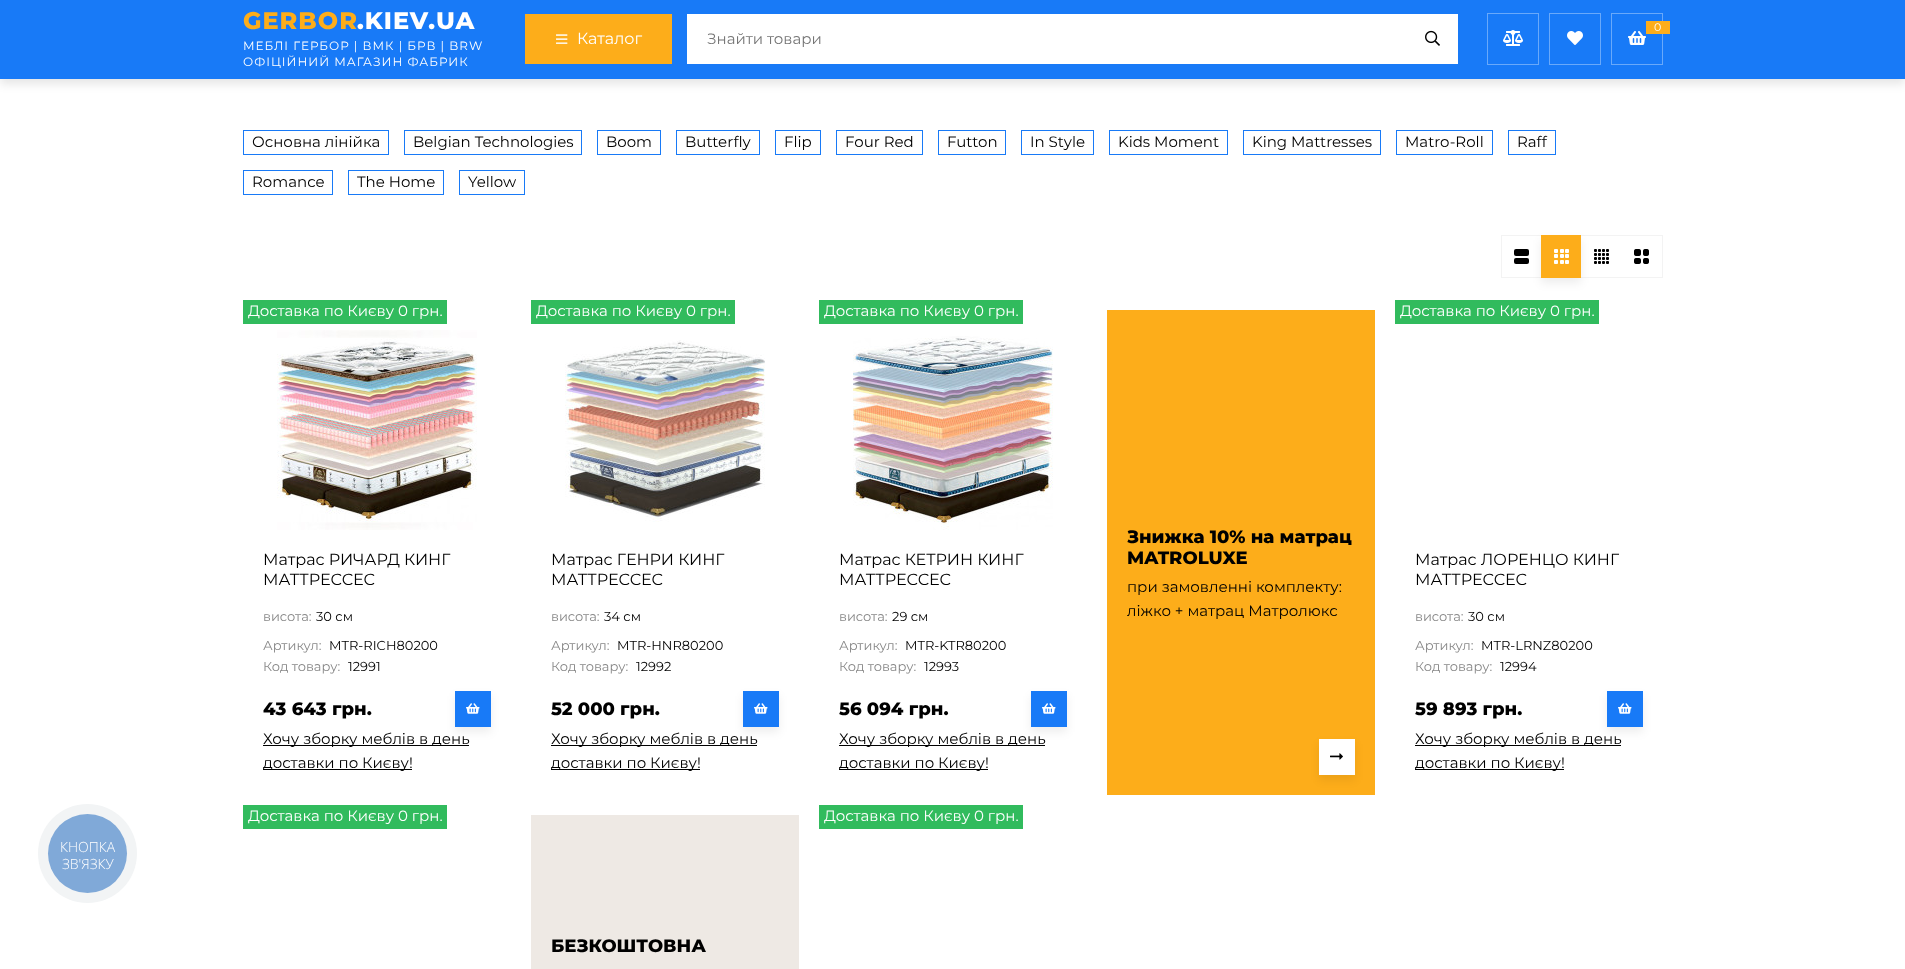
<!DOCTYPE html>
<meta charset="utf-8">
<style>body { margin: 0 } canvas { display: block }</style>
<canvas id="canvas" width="1905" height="969"></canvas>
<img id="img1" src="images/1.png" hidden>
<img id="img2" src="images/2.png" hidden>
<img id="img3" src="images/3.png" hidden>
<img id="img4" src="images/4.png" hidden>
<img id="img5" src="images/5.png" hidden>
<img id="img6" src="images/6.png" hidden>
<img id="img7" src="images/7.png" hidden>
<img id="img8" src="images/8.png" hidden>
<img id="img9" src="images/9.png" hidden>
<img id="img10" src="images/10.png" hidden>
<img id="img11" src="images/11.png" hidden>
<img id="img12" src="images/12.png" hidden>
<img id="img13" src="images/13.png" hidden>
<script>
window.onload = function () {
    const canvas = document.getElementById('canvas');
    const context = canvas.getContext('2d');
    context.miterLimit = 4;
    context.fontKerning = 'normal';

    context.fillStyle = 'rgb(255, 255, 255)';
    context.fillRect(0, 0, 1905, 969);
    context.fillStyle = 'rgba(0, 0, 0, 0.1)';
    context.filter = 'blur(5px)';
    context.beginPath();
    context.rect(0, 4, 1905, 80);
    context.fill();
    context.filter = 'none';
    context.fillStyle = 'rgb(24, 122, 247)';
    context.fillRect(0, 0, 1905, 79);
    context.strokeStyle = 'rgb(105, 169, 250)';
    context.strokeRect(1487.5, 13.5, 51, 51);
    context.drawImage(document.getElementById('img1'), 1503, 30, 20, 16);
    context.strokeRect(1549.5, 13.5, 51, 51);
    context.drawImage(document.getElementById('img2'), 1567, 31, 16, 14);
    context.strokeRect(1611.5, 13.5, 51, 51);
    context.fillStyle = 'rgb(253, 173, 26)';
    context.fillRect(1646, 21, 24, 13);
    context.drawImage(document.getElementById('img3'), 1628, 31, 18, 14);
    context.fillRect(525, 14, 147, 50);
    context.drawImage(document.getElementById('img4'), 556, 34, 12, 10);
    context.fillStyle = 'rgb(255, 255, 255)';
    context.fillRect(687, 14, 771, 50);
    context.drawImage(document.getElementById('img5'), 1425, 30, 15, 16);
    context.fillStyle = 'rgb(242, 244, 245)';
    context.beginPath();
    context.arc(87.5, 853.5, 49.5, 0, 2 * Math.PI);
    context.fill();
    context.fillStyle = 'rgb(128, 169, 216)';
    context.beginPath();
    context.arc(87.5, 853.5, 39.5, 0, 2 * Math.PI);
    context.fill();
    context.strokeStyle = 'rgb(24, 122, 247)';
    context.strokeRect(243.5, 130.5, 145, 24);
    context.strokeRect(404.5, 130.5, 177, 24);
    context.strokeRect(597.5, 130.5, 63, 24);
    context.strokeRect(676.5, 130.5, 83, 24);
    context.strokeRect(775.5, 130.5, 45, 24);
    context.strokeRect(836.5, 130.5, 86, 24);
    context.strokeRect(938.5, 130.5, 67, 24);
    context.strokeRect(1021.5, 130.5, 72, 24);
    context.strokeRect(1109.5, 130.5, 118, 24);
    context.strokeRect(1243.5, 130.5, 137, 24);
    context.strokeRect(1396.5, 130.5, 96, 24);
    context.strokeRect(1508.5, 130.5, 47, 24);
    context.strokeRect(243.5, 170.5, 89, 24);
    context.strokeRect(348.5, 170.5, 95, 24);
    context.strokeRect(459.5, 170.5, 65, 24);
    context.strokeStyle = 'rgb(243, 243, 243)';
    context.strokeRect(1501.5, 235.5, 161, 42);
    context.fillStyle = 'rgba(0, 0, 0, 0.07)';
    context.filter = 'blur(5px)';
    context.beginPath();
    context.rect(1541, 240, 40, 43);
    context.fill();
    context.filter = 'none';
    context.fillStyle = 'rgb(0, 0, 0)';
    context.beginPath();
    context.roundRect(1514, 249, 15, 7, 2);
    context.fill();
    context.beginPath();
    context.roundRect(1514, 258, 15, 6, 2);
    context.fill();
    context.fillStyle = 'rgb(253, 173, 26)';
    context.fillRect(1541, 235, 40, 43);
    context.drawImage(document.getElementById('img6'), 1554, 249, 15, 15);
    context.drawImage(document.getElementById('img7'), 1594, 249, 15, 15);
    context.drawImage(document.getElementById('img8'), 1634, 249, 15, 15);
    context.fillStyle = 'rgb(49, 187, 93)';
    context.fillRect(243, 300, 204, 24);
    context.drawImage(document.getElementById('img9'), 277, 330, 200, 200);
    context.fillStyle = 'rgb(0, 0, 0)';
    context.fillRect(263, 745, 206, 1);
    context.fillStyle = 'rgba(0, 0, 0, 0.07)';
    context.filter = 'blur(5px)';
    context.beginPath();
    context.rect(455, 696, 36, 36);
    context.fill();
    context.filter = 'none';
    context.fillStyle = 'rgb(24, 122, 247)';
    context.fillRect(455, 691, 36, 36);
    context.drawImage(document.getElementById('img10'), 466, 703, 14, 11);
    context.fillStyle = 'rgb(0, 0, 0)';
    context.fillRect(263, 769, 149, 1);
    context.fillStyle = 'rgb(49, 187, 93)';
    context.fillRect(531, 300, 204, 24);
    context.drawImage(document.getElementById('img11'), 565, 340, 200, 182);
    context.fillStyle = 'rgb(0, 0, 0)';
    context.fillRect(551, 745, 206, 1);
    context.fillStyle = 'rgba(0, 0, 0, 0.07)';
    context.filter = 'blur(5px)';
    context.beginPath();
    context.rect(743, 696, 36, 36);
    context.fill();
    context.filter = 'none';
    context.fillStyle = 'rgb(24, 122, 247)';
    context.fillRect(743, 691, 36, 36);
    context.drawImage(document.getElementById('img10'), 754, 703, 14, 11);
    context.fillStyle = 'rgb(0, 0, 0)';
    context.fillRect(551, 769, 149, 1);
    context.fillStyle = 'rgb(49, 187, 93)';
    context.fillRect(819, 300, 204, 24);
    context.drawImage(document.getElementById('img12'), 853, 336, 200, 194);
    context.fillStyle = 'rgb(0, 0, 0)';
    context.fillRect(839, 745, 206, 1);
    context.fillStyle = 'rgba(0, 0, 0, 0.07)';
    context.filter = 'blur(5px)';
    context.beginPath();
    context.rect(1031, 696, 36, 36);
    context.fill();
    context.filter = 'none';
    context.fillStyle = 'rgb(24, 122, 247)';
    context.fillRect(1031, 691, 36, 36);
    context.drawImage(document.getElementById('img10'), 1042, 703, 14, 11);
    context.fillStyle = 'rgb(0, 0, 0)';
    context.fillRect(839, 769, 149, 1);
    context.fillStyle = 'rgb(253, 173, 26)';
    context.fillRect(1107, 310, 268, 485);
    context.fillStyle = 'rgba(0, 0, 0, 0.07)';
    context.filter = 'blur(5px)';
    context.beginPath();
    context.rect(1319, 744, 36, 36);
    context.fill();
    context.filter = 'none';
    context.fillStyle = 'rgb(255, 255, 255)';
    context.fillRect(1319, 739, 36, 36);
    context.drawImage(document.getElementById('img13'), 1330, 753, 13, 7);
    context.fillStyle = 'rgb(49, 187, 93)';
    context.fillRect(1395, 300, 204, 24);
    context.fillStyle = 'rgb(0, 0, 0)';
    context.fillRect(1415, 745, 206, 1);
    context.fillStyle = 'rgba(0, 0, 0, 0.07)';
    context.filter = 'blur(5px)';
    context.beginPath();
    context.rect(1607, 696, 36, 36);
    context.fill();
    context.filter = 'none';
    context.fillStyle = 'rgb(24, 122, 247)';
    context.fillRect(1607, 691, 36, 36);
    context.drawImage(document.getElementById('img10'), 1618, 703, 14, 11);
    context.fillStyle = 'rgb(0, 0, 0)';
    context.fillRect(1415, 769, 149, 1);
    context.fillStyle = 'rgb(49, 187, 93)';
    context.fillRect(243, 805, 204, 24);
    context.fillRect(819, 805, 204, 24);
    context.fillStyle = 'rgb(238, 233, 228)';
    context.fillRect(531, 815, 268, 154);
    context.letterSpacing = '1px';
    context.font = '800 24px Montserrat';
    context.fillStyle = 'rgb(253, 173, 26)';
    context.fillText('GERBOR', 243, 29);
    context.fillStyle = 'rgb(255, 255, 255)';
    context.fillText('.KIEV.UA', 357, 29);
    context.font = '12px Montserrat';
    context.fillText('МЕБЛI ГЕРБОР | ВМК | БРВ | BRW', 243, 50);
    context.fillText('ОФІЦІЙНИЙ МАГАЗИН ФАБРИК', 243, 66);
    context.letterSpacing = '0px';
    context.font = '11px Montserrat';
    context.fillText('0', 1654, 31);
    context.font = '16px Montserrat';
    context.fillText('Каталог', 577, 44);
    context.font = '15px Montserrat';
    context.fillStyle = 'rgb(117, 117, 117)';
    context.fillText('Знайти товари', 707, 44);
    context.font = '300 14px Open Sans';
    context.fillStyle = 'rgb(255, 255, 255)';
    context.fillText('КНОПКА', 60, 852);
    context.fillText('ЗВ\'ЯЗКУ', 62, 869);
    context.font = '15px Montserrat';
    context.fillStyle = 'rgb(0, 0, 0)';
    context.fillText('Основна лінійка', 252, 147);
    context.fillText('Belgian Technologies', 413, 147);
    context.fillText('Boom', 606, 147);
    context.fillText('Butterfly', 685, 147);
    context.fillText('Flip', 784, 147);
    context.fillText('Four Red', 845, 147);
    context.fillText('Futton', 947, 147);
    context.fillText('In Style', 1030, 147);
    context.fillText('Kids Moment', 1118, 147);
    context.fillText('King Mattresses', 1252, 147);
    context.fillText('Matro-Roll', 1405, 147);
    context.fillText('Raff', 1517, 147);
    context.fillText('Romance', 252, 187);
    context.fillText('The Home', 357, 187);
    context.fillText('Yellow', 468, 187);
    context.fillStyle = 'rgb(255, 255, 255)';
    context.fillText('Доставка по Києву 0 грн.', 248, 316);
    context.font = '16px Montserrat';
    context.fillStyle = 'rgb(0, 0, 0)';
    context.fillText('Матрас РИЧАРД КИНГ', 263, 565);
    context.fillText('МАТТРЕССЕС', 263, 585);
    context.font = '13px Montserrat';
    context.fillStyle = 'rgb(136, 136, 136)';
    context.fillText('висота:', 263, 621);
    context.fillStyle = 'rgb(0, 0, 0)';
    context.fillText('30 см', 316, 621);
    context.fillStyle = 'rgb(136, 136, 136)';
    context.fillText('Артикул:', 263, 650);
    context.fillStyle = 'rgb(0, 0, 0)';
    context.fillText('MTR-RICH80200', 329, 650);
    context.fillStyle = 'rgb(136, 136, 136)';
    context.fillText('Код товару:', 263, 671);
    context.fillStyle = 'rgb(0, 0, 0)';
    context.fillText('12991', 348, 671);
    context.font = '800 18px Montserrat';
    context.fillText('43 643 грн.', 263, 715);
    context.font = '15px Montserrat';
    context.fillText('Хочу зборку меблів в день', 263, 744);
    context.fillText('доставки по Києву!', 263, 768);
    context.fillStyle = 'rgb(255, 255, 255)';
    context.fillText('Доставка по Києву 0 грн.', 536, 316);
    context.font = '16px Montserrat';
    context.fillStyle = 'rgb(0, 0, 0)';
    context.fillText('Матрас ГЕНРИ КИНГ', 551, 565);
    context.fillText('МАТТРЕССЕС', 551, 585);
    context.font = '13px Montserrat';
    context.fillStyle = 'rgb(136, 136, 136)';
    context.fillText('висота:', 551, 621);
    context.fillStyle = 'rgb(0, 0, 0)';
    context.fillText('34 см', 604, 621);
    context.fillStyle = 'rgb(136, 136, 136)';
    context.fillText('Артикул:', 551, 650);
    context.fillStyle = 'rgb(0, 0, 0)';
    context.fillText('MTR-HNR80200', 617, 650);
    context.fillStyle = 'rgb(136, 136, 136)';
    context.fillText('Код товару:', 551, 671);
    context.fillStyle = 'rgb(0, 0, 0)';
    context.fillText('12992', 636, 671);
    context.font = '800 18px Montserrat';
    context.fillText('52 000 грн.', 551, 715);
    context.font = '15px Montserrat';
    context.fillText('Хочу зборку меблів в день', 551, 744);
    context.fillText('доставки по Києву!', 551, 768);
    context.fillStyle = 'rgb(255, 255, 255)';
    context.fillText('Доставка по Києву 0 грн.', 824, 316);
    context.font = '16px Montserrat';
    context.fillStyle = 'rgb(0, 0, 0)';
    context.fillText('Матрас КЕТРИН КИНГ', 839, 565);
    context.fillText('МАТТРЕССЕС', 839, 585);
    context.font = '13px Montserrat';
    context.fillStyle = 'rgb(136, 136, 136)';
    context.fillText('висота:', 839, 621);
    context.fillStyle = 'rgb(0, 0, 0)';
    context.fillText('29 см', 892, 621);
    context.fillStyle = 'rgb(136, 136, 136)';
    context.fillText('Артикул:', 839, 650);
    context.fillStyle = 'rgb(0, 0, 0)';
    context.fillText('MTR-KTR80200', 905, 650);
    context.fillStyle = 'rgb(136, 136, 136)';
    context.fillText('Код товару:', 839, 671);
    context.fillStyle = 'rgb(0, 0, 0)';
    context.fillText('12993', 924, 671);
    context.font = '800 18px Montserrat';
    context.fillText('56 094 грн.', 839, 715);
    context.font = '15px Montserrat';
    context.fillText('Хочу зборку меблів в день', 839, 744);
    context.fillText('доставки по Києву!', 839, 768);
    context.font = '800 18px Montserrat';
    context.fillText('Знижка 10% на матрац', 1127, 543);
    context.fillText('MATROLUXE', 1127, 564);
    context.font = '15px Montserrat';
    context.fillText('при замовленні комплекту:', 1127, 592);
    context.fillText('ліжко + матрац Матролюкс', 1127, 616);
    context.fillStyle = 'rgb(255, 255, 255)';
    context.fillText('Доставка по Києву 0 грн.', 1400, 316);
    context.font = '16px Montserrat';
    context.fillStyle = 'rgb(0, 0, 0)';
    context.fillText('Матрас ЛОРЕНЦО КИНГ', 1415, 565);
    context.fillText('МАТТРЕССЕС', 1415, 585);
    context.font = '13px Montserrat';
    context.fillStyle = 'rgb(136, 136, 136)';
    context.fillText('висота:', 1415, 621);
    context.fillStyle = 'rgb(0, 0, 0)';
    context.fillText('30 см', 1468, 621);
    context.fillStyle = 'rgb(136, 136, 136)';
    context.fillText('Артикул:', 1415, 650);
    context.fillStyle = 'rgb(0, 0, 0)';
    context.fillText('MTR-LRNZ80200', 1481, 650);
    context.fillStyle = 'rgb(136, 136, 136)';
    context.fillText('Код товару:', 1415, 671);
    context.fillStyle = 'rgb(0, 0, 0)';
    context.fillText('12994', 1500, 671);
    context.font = '800 18px Montserrat';
    context.fillText('59 893 грн.', 1415, 715);
    context.font = '15px Montserrat';
    context.fillText('Хочу зборку меблів в день', 1415, 744);
    context.fillText('доставки по Києву!', 1415, 768);
    context.fillStyle = 'rgb(255, 255, 255)';
    context.fillText('Доставка по Києву 0 грн.', 248, 821);
    context.fillText('Доставка по Києву 0 грн.', 824, 821);
    context.font = '800 18px Montserrat';
    context.fillStyle = 'rgb(0, 0, 0)';
    context.fillText('БЕЗКОШТОВНА', 551, 952);
};
</script>
